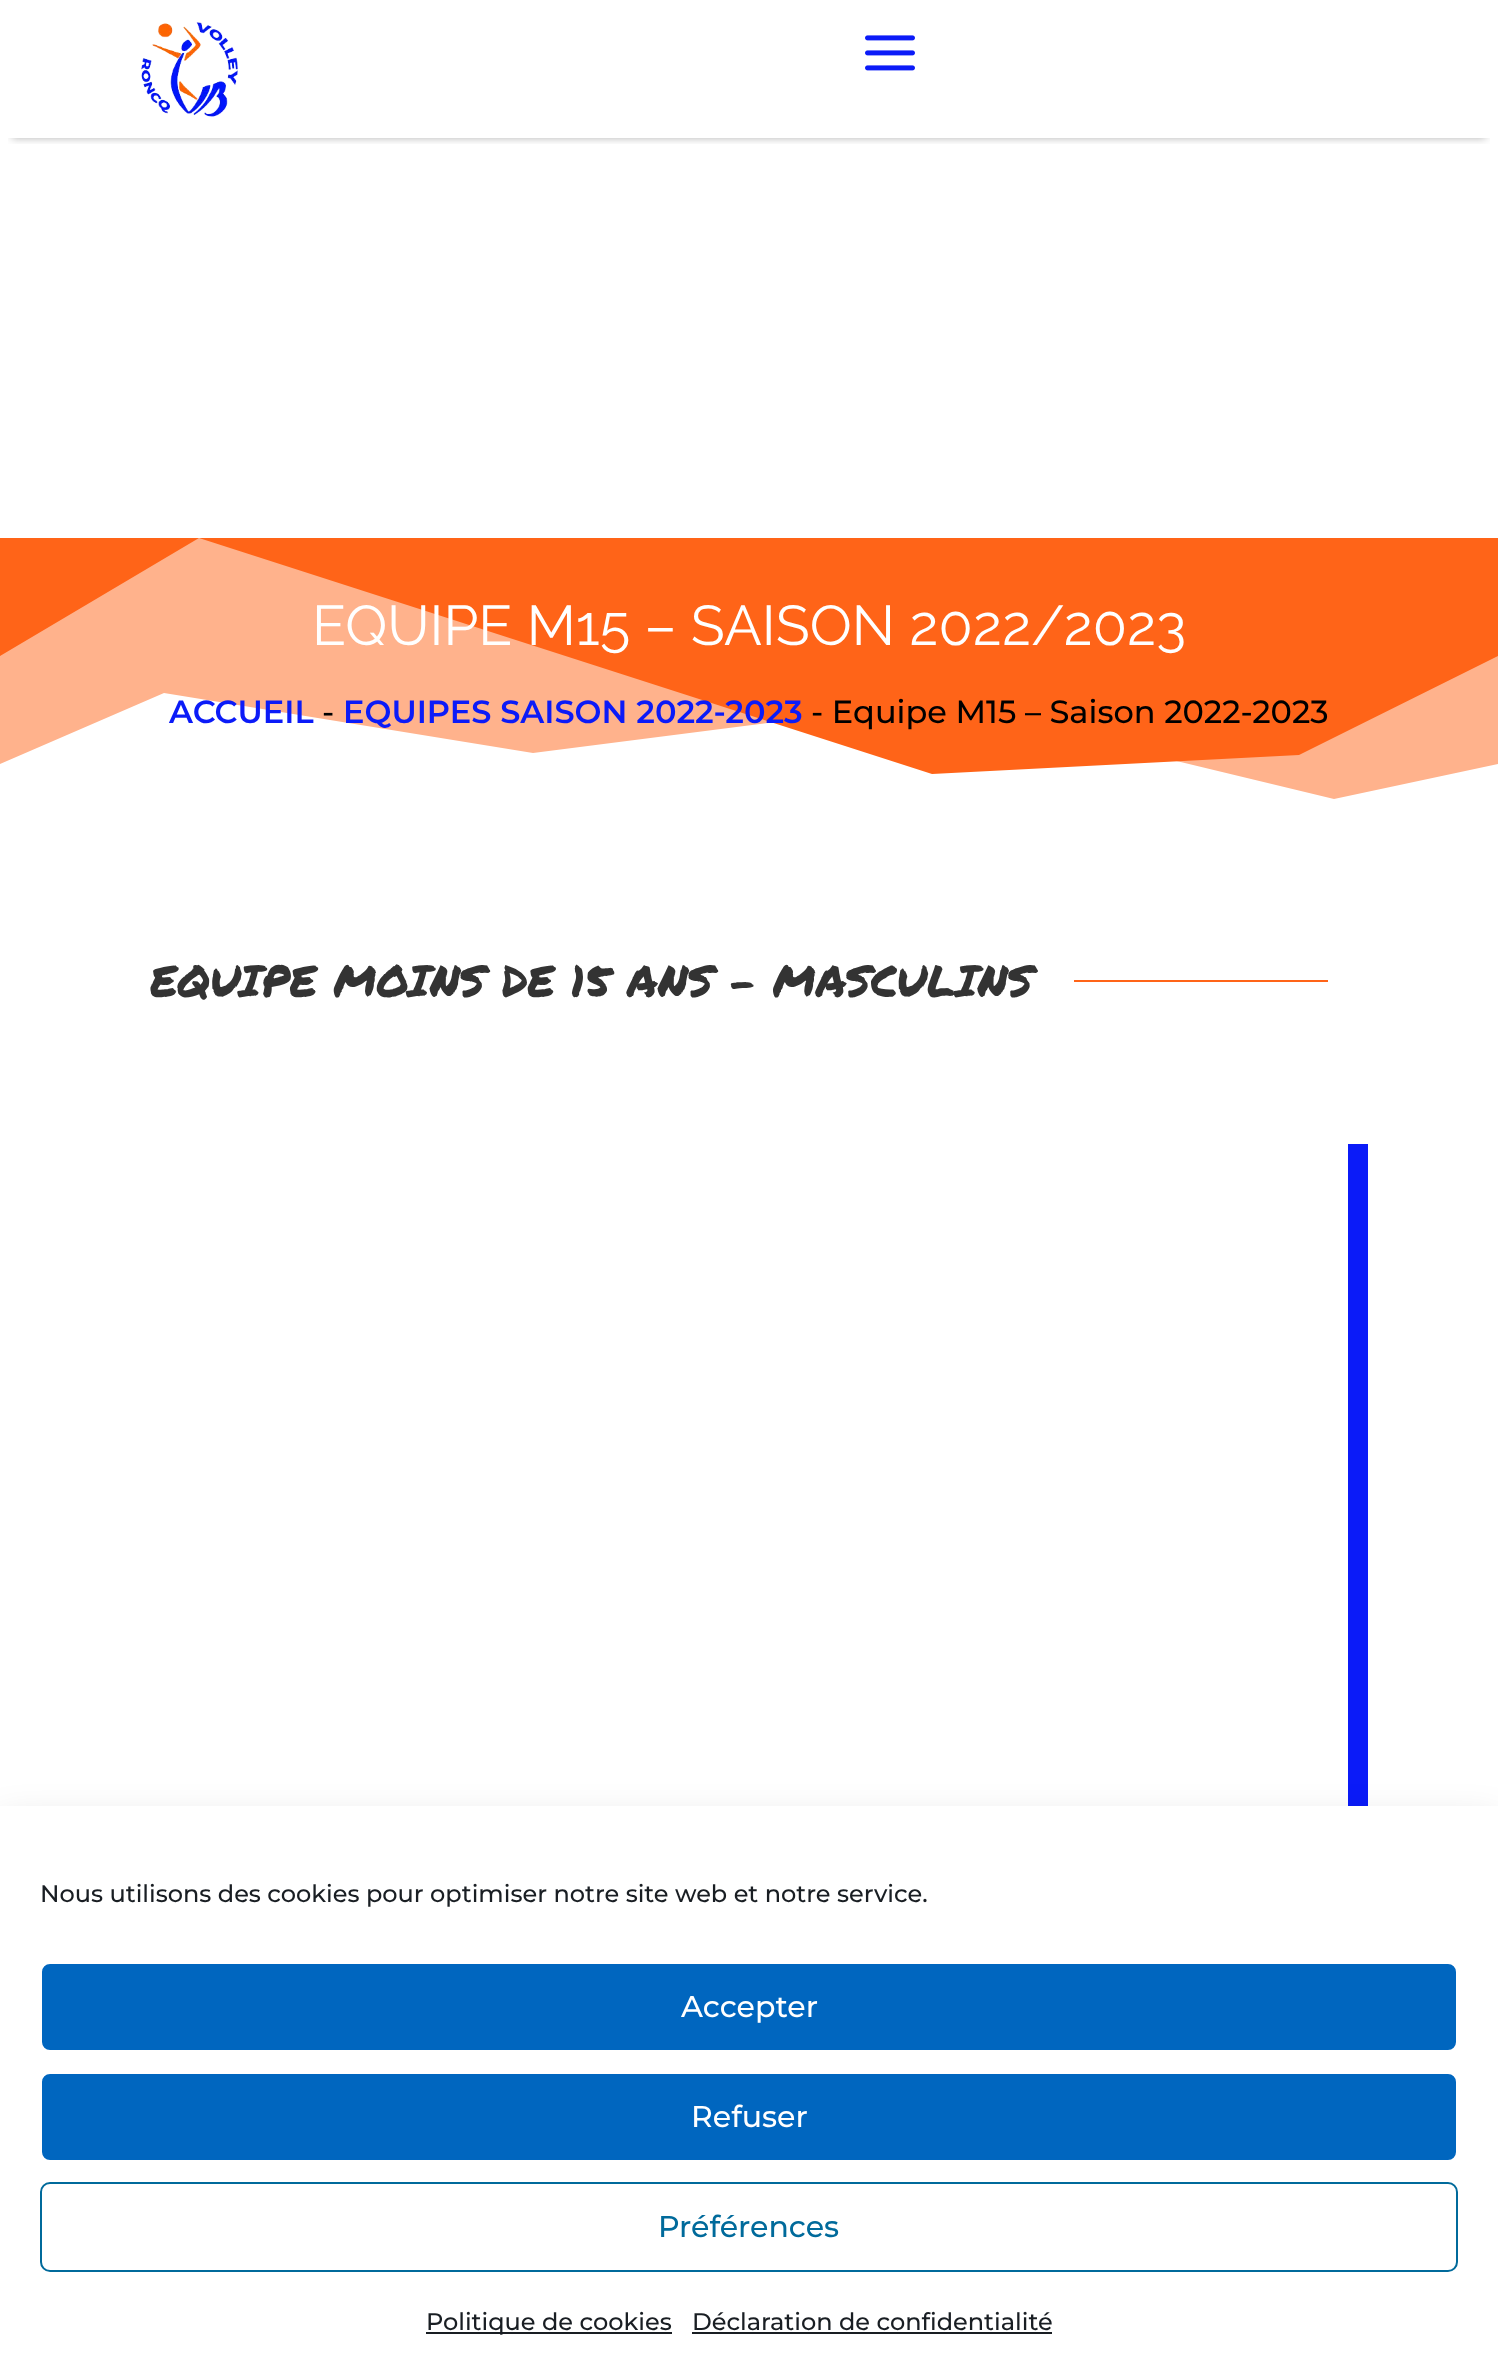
<!DOCTYPE html>
<meta charset="utf-8">
<style>body { margin: 0 } canvas { display: block }</style>
<canvas id="canvas" width="1498" height="2378"></canvas>
<img id="img1" src="images/1.png" hidden>
<img id="img2" src="images/2.png" hidden>
<script>
window.onload = function () {
    const canvas = document.getElementById('canvas');
    const context = canvas.getContext('2d');
    context.miterLimit = 4;
    context.fontKerning = 'normal';

    context.fillStyle = 'rgb(255, 255, 255)';
    context.fillRect(0, 0, 1498, 2378);
    context.save();
    context.beginPath();
    context.rect(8, 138, 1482, 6);
    context.clip();
    context.fillStyle = 'rgba(0, 0, 0, 0.3)';
    context.filter = 'blur(4px)';
    context.beginPath();
    context.rect(12, 24, 1474, 114);
    context.fill();
    context.filter = 'none';
    context.restore();
    context.drawImage(document.getElementById('img1'), 141, 22, 97, 95);
    context.drawImage(document.getElementById('img2'), 865, 35, 50, 36);
    context.fillStyle = 'rgb(255, 178, 140)';
    context.beginPath();
    context.moveTo(0, 764);
    context.lineTo(164, 693);
    context.lineTo(533, 753);
    context.lineTo(932, 702);
    context.lineTo(1334, 799);
    context.lineTo(1498, 764);
    context.lineTo(1498, 538);
    context.lineTo(0, 538);
    context.closePath();
    context.fill();
    context.fillStyle = 'rgb(255, 100, 24)';
    context.beginPath();
    context.moveTo(0, 538);
    context.lineTo(0, 656);
    context.lineTo(199, 538);
    context.lineTo(932, 774);
    context.lineTo(1299, 755);
    context.lineTo(1498, 656);
    context.lineTo(1498, 538);
    context.closePath();
    context.fill();
    context.fillRect(1074, 980, 254, 2);
    context.fillStyle = 'rgb(11, 27, 248)';
    context.beginPath();
    context.moveTo(170, 1922);
    context.lineTo(170, 1942);
    context.lineTo(1368, 1942);
    context.lineTo(1368, 1144);
    context.lineTo(1348, 1144);
    context.lineTo(1348, 1922);
    context.closePath();
    context.fill();
    context.fillStyle = 'rgba(0, 0, 0, 0.19)';
    context.filter = 'blur(20px)';
    context.beginPath();
    context.rect(0, 1826, 1498, 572);
    context.fill();
    context.filter = 'none';
    context.fillStyle = 'rgb(255, 255, 255)';
    context.fillRect(0, 1806, 1498, 572);
    context.fillStyle = 'rgb(0, 102, 191)';
    context.beginPath();
    context.roundRect(41, 1963, 1416, 88, 9);
    context.fill();
    context.strokeStyle = 'rgb(255, 255, 255)';
    context.lineWidth = 2;
    context.stroke();
    context.beginPath();
    context.roundRect(41, 2073, 1416, 88, 9);
    context.fill();
    context.stroke();
    context.beginPath();
    context.roundRect(41, 2183, 1416, 88, 9);
    context.strokeStyle = 'rgb(0, 106, 155)';
    context.stroke();
    context.fillStyle = 'rgb(25, 30, 35)';
    context.fillRect(426, 2332, 246, 2);
    context.fillRect(692, 2332, 360, 2);
    context.font = '100 56px Raleway';
    context.fillStyle = 'rgb(255, 255, 255)';
    context.fillText('EQUIPE M15 – SAISON 2022/2023', 312, 645);
    context.font = '100 32px Montserrat';
    context.fillStyle = 'rgb(11, 27, 248)';
    context.fillText('ACCUEIL', 169, 723);
    context.font = '100 32px "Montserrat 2"';
    context.fillStyle = 'rgb(0, 0, 0)';
    context.fillText('-', 322, 723);
    context.font = '100 32px Montserrat';
    context.fillStyle = 'rgb(11, 27, 248)';
    context.fillText('EQUIPES SAISON 2022-2023', 343, 723);
    context.font = '100 32px "Montserrat 2"';
    context.fillStyle = 'rgb(0, 0, 0)';
    context.fillText('- Equipe M15 – Saison 2022-2023', 811, 723);
    context.font = '44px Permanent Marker';
    context.fillStyle = 'rgb(51, 51, 51)';
    context.fillText('EQUIPE MOINS DE 15 ANS - MASCULINS', 150, 997);
    context.font = '100 24px "Montserrat 2"';
    context.fillStyle = 'rgb(25, 30, 35)';
    context.fillText('Nous utilisons des cookies pour optimiser notre site web et notre service.', 40, 1902);
    context.font = '100 30px "Montserrat 2"';
    context.fillStyle = 'rgb(255, 255, 255)';
    context.fillText('Accepter', 681, 2017);
    context.fillText('Refuser', 691, 2127);
    context.fillStyle = 'rgb(0, 106, 155)';
    context.fillText('Préférences', 658, 2237);
    context.font = '100 24px "Montserrat 2"';
    context.fillStyle = 'rgb(25, 30, 35)';
    context.fillText('Politique de cookies', 426, 2330);
    context.fillText('Déclaration de confidentialité', 692, 2330);
};
</script>
